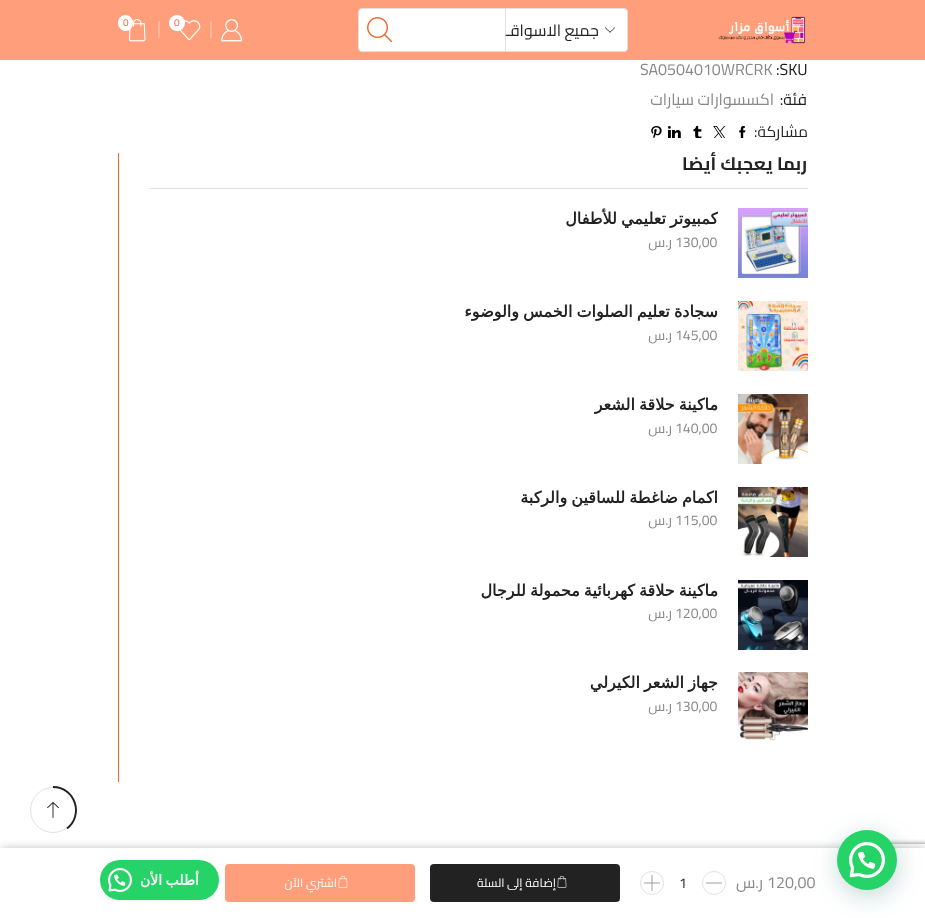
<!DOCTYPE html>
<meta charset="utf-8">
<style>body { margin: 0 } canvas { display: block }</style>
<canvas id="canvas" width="925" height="918"></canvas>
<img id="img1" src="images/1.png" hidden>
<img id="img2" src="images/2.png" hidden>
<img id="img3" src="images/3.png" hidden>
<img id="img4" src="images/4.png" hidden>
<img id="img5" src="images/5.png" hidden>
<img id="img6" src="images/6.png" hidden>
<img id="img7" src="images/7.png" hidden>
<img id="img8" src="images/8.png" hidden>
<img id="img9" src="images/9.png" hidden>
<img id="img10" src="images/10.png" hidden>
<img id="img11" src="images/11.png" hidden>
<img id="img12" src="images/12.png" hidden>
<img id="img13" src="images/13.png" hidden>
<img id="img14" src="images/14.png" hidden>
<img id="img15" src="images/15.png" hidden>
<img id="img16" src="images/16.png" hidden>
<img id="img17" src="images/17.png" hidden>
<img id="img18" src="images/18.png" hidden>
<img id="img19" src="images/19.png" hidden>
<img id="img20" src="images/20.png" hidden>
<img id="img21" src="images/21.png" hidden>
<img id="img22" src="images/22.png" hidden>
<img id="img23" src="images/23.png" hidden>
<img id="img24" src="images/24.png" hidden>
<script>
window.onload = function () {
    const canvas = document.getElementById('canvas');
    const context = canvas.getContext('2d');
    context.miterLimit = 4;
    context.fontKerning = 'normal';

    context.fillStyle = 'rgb(255, 255, 255)';
    context.fillRect(0, 0, 925, 918);
    context.fillStyle = 'rgba(0, 0, 0, 0.3)';
    context.filter = 'blur(5px)';
    context.beginPath();
    context.rect(1, 849, 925, 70);
    context.fill();
    context.filter = 'none';
    context.save();
    context.beginPath();
    context.rect(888, 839, 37, 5);
    context.clip();
    context.fillStyle = 'rgb(128, 128, 128)';
    context.filter = 'blur(2.5px)';
    context.beginPath();
    context.roundRect(855, 844, 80, 60, 2);
    context.fill();
    context.filter = 'none';
    context.restore();
    context.fillStyle = 'rgb(255, 255, 255)';
    context.fillRect(0, 848, 925, 70);
    context.fillStyle = 'rgba(7, 94, 84, 0.24)';
    context.filter = 'blur(12px)';
    context.beginPath();
    context.roundRect(838, 836, 60, 60, 30);
    context.fill();
    context.filter = 'none';
    context.fillStyle = 'rgb(37, 211, 102)';
    context.beginPath();
    context.arc(867, 860, 30, 0, 2 * Math.PI);
    context.fill();
    context.drawImage(document.getElementById('img1'), 849, 842, 36, 36);
    context.fillStyle = 'rgb(255, 158, 122)';
    context.fillRect(0, 0, 925, 60);
    context.drawImage(document.getElementById('img2'), 718, 16, 88, 28);
    context.fillStyle = 'rgb(255, 255, 255)';
    context.beginPath();
    context.roundRect(358.5, 8.5, 269, 43, 3.5);
    context.fill();
    context.strokeStyle = 'rgb(225, 225, 225)';
    context.stroke();
    context.drawImage(document.getElementById('img3'), 605, 27, 10, 6);
    context.fillStyle = 'rgb(225, 225, 225)';
    context.fillRect(505, 9, 1, 42);
    context.drawImage(document.getElementById('img4'), 367, 17, 25, 26);
    context.drawImage(document.getElementById('img5'), 221, 19, 22, 23);
    context.drawImage(document.getElementById('img6'), 179, 20, 22, 21);
    context.fillStyle = 'rgb(255, 255, 255)';
    context.beginPath();
    context.arc(177, 23, 8, 0, 2 * Math.PI);
    context.fill();
    context.drawImage(document.getElementById('img7'), 128, 19, 18, 23);
    context.beginPath();
    context.roundRect(118, 15, 15, 16, 7.5);
    context.fill();
    context.drawImage(document.getElementById('img8'), 739, 126, 7, 12);
    context.drawImage(document.getElementById('img9'), 713, 126, 13, 12);
    context.drawImage(document.getElementById('img10'), 693, 126, 9, 12);
    context.drawImage(document.getElementById('img11'), 668, 126, 13, 12);
    context.drawImage(document.getElementById('img12'), 651, 126, 11, 12);
    context.fillStyle = 'rgb(244, 101, 48)';
    context.fillRect(118, 153, 1, 629);
    context.fillStyle = 'rgb(225, 225, 225)';
    context.fillRect(149, 188, 659, 1);
    context.drawImage(document.getElementById('img13'), 738, 208, 70, 70);
    context.drawImage(document.getElementById('img14'), 738, 301, 70, 70);
    context.drawImage(document.getElementById('img15'), 738, 394, 70, 70);
    context.drawImage(document.getElementById('img16'), 738, 487, 70, 70);
    context.drawImage(document.getElementById('img17'), 738, 580, 70, 70);
    context.drawImage(document.getElementById('img18'), 738, 672, 70, 69);
    context.beginPath();
    context.arc(53, 810, 22.5, 0, 2 * Math.PI);
    context.stroke();
    context.beginPath();
    context.moveTo(53, 787);
    context.bezierCurveTo(75.5, 787, 84, 815.5, 67, 828.5);
    context.strokeStyle = 'rgb(34, 34, 34)';
    context.lineWidth = 1.9;
    context.stroke();
    context.drawImage(document.getElementById('img19'), 47, 802, 12, 16);
    context.beginPath();
    context.arc(714, 883, 11.5, 0, 2 * Math.PI);
    context.strokeStyle = 'rgb(225, 225, 225)';
    context.lineWidth = 1;
    context.stroke();
    context.drawImage(document.getElementById('img20'), 706, 882, 16, 2);
    context.beginPath();
    context.arc(652, 883, 11.5, 0, 2 * Math.PI);
    context.stroke();
    context.drawImage(document.getElementById('img21'), 644, 875, 16, 16);
    context.fillStyle = 'rgb(34, 34, 34)';
    context.beginPath();
    context.roundRect(430, 864, 190, 38, 4);
    context.fill();
    context.drawImage(document.getElementById('img22'), 557, 875, 10, 13);
    context.fillStyle = 'rgb(255, 158, 122)';
    context.beginPath();
    context.roundRect(225, 864, 190, 38, 4);
    context.fill();
    context.drawImage(document.getElementById('img23'), 338, 875, 10, 13);
    context.fillStyle = 'rgb(37, 211, 102)';
    context.beginPath();
    context.roundRect(100, 860, 119, 40, 20);
    context.fill();
    context.drawImage(document.getElementById('img24'), 108, 868, 24, 24);
    context.direction = 'rtl';
    context.font = '16px Cairo';
    context.fillStyle = 'rgb(34, 34, 34)';
    context.fillText('جميع الاسواقـ', 599, 36);
    context.direction = 'ltr';
    context.font = '14px Liberation Serif';
    context.fillStyle = 'rgb(255, 207, 189)';
    context.fillText('│', 206, 34);
    context.font = '10px Cairo';
    context.fillStyle = 'rgb(255, 87, 87)';
    context.fillText('0', 174, 26);
    context.font = '14px Liberation Serif';
    context.fillStyle = 'rgb(255, 207, 189)';
    context.fillText('│', 154, 34);
    context.font = '10px Cairo';
    context.fillStyle = 'rgb(244, 101, 48)';
    context.fillText('0', 123, 26);
    context.font = '16px Cairo';
    context.fillStyle = 'rgb(34, 34, 34)';
    context.fillText(':SKU', 776, 75);
    context.fillStyle = 'rgb(136, 136, 136)';
    context.fillText('SA0504010WRCRK', 640, 75);
    context.direction = 'rtl';
    context.fillStyle = 'rgb(34, 34, 34)';
    context.fillText('فئة:', 807, 105);
    context.fillStyle = 'rgb(136, 136, 136)';
    context.fillText('اكسسوارات سيارات', 774, 105);
    context.font = '15.5px Cairo';
    context.fillStyle = 'rgb(34, 34, 34)';
    context.fillText('مشاركة:', 808, 137);
    context.font = 'bold 18px Cairo';
    context.fillText('ربما يعجبك أيضا', 807, 170);
    context.save();
    context.beginPath();
    context.rect(174, 208, 544, 23);
    context.clip();
    context.wordSpacing = '-1px';
    context.font = 'bold 16px DejaVu Sans';
    context.fillText('كمبيوتر تعليمي للأطفال', 718, 224);
    context.restore();
    context.direction = 'ltr';
    context.font = '14px Cairo';
    context.fillStyle = 'rgb(136, 136, 136)';
    context.fillText('130,00', 675, 247);
    context.direction = 'rtl';
    context.fillText('ر.س', 672, 247);
    context.save();
    context.beginPath();
    context.rect(174, 301, 544, 22);
    context.clip();
    context.wordSpacing = '-1px';
    context.font = 'bold 16px DejaVu Sans';
    context.fillStyle = 'rgb(34, 34, 34)';
    context.fillText('سجادة تعليم الصلوات الخمس والوضوء', 718, 317);
    context.restore();
    context.direction = 'ltr';
    context.fillText('145,00', 675, 340);
    context.direction = 'rtl';
    context.fillText('ر.س', 672, 340);
    context.save();
    context.beginPath();
    context.rect(174, 394, 544, 22);
    context.clip();
    context.wordSpacing = '-1px';
    context.font = 'bold 16px DejaVu Sans';
    context.fillStyle = 'rgb(34, 34, 34)';
    context.fillText('ماكينة حلاقة الشعر', 718, 410);
    context.restore();
    context.direction = 'ltr';
    context.fillText('140,00', 675, 433);
    context.direction = 'rtl';
    context.fillText('ر.س', 672, 433);
    context.save();
    context.beginPath();
    context.rect(174, 487, 544, 22);
    context.clip();
    context.wordSpacing = '-1px';
    context.font = 'bold 16px DejaVu Sans';
    context.fillStyle = 'rgb(34, 34, 34)';
    context.fillText('اكمام ضاغطة للساقين والركبة', 718, 503);
    context.restore();
    context.direction = 'ltr';
    context.fillText('115,00', 675, 525);
    context.direction = 'rtl';
    context.fillText('ر.س', 672, 525);
    context.save();
    context.beginPath();
    context.rect(174, 580, 544, 22);
    context.clip();
    context.wordSpacing = '-1px';
    context.font = 'bold 16px DejaVu Sans';
    context.fillStyle = 'rgb(34, 34, 34)';
    context.fillText('ماكينة حلاقة كهربائية محمولة للرجال', 718, 596);
    context.restore();
    context.direction = 'ltr';
    context.fillText('120,00', 675, 618);
    context.direction = 'rtl';
    context.fillText('ر.س', 672, 618);
    context.wordSpacing = '-1px';
    context.font = 'bold 16px DejaVu Sans';
    context.fillStyle = 'rgb(34, 34, 34)';
    context.fillText('جهاز الشعر الكيرلي', 718, 688);
    context.wordSpacing = '0px';
    context.direction = 'ltr';
    context.font = '14px Cairo';
    context.fillStyle = 'rgb(136, 136, 136)';
    context.fillText('130,00', 675, 711);
    context.direction = 'rtl';
    context.fillText('ر.س', 672, 711);
    context.direction = 'ltr';
    context.font = '16px Cairo';
    context.fillText('120,00', 767, 888);
    context.direction = 'rtl';
    context.fillText('ر.س', 763, 888);
    context.direction = 'ltr';
    context.font = '14px Cairo';
    context.fillStyle = 'rgb(34, 34, 34)';
    context.fillText('1', 679, 888);
    context.direction = 'rtl';
    context.font = '12px Cairo';
    context.fillStyle = 'rgb(255, 255, 255)';
    context.fillText('إضافة إلى السلة', 556, 887);
    context.fillText('اشتري الآن', 337, 887);
    context.wordSpacing = '-1px';
    context.font = 'bold 14px DejaVu Sans';
    context.fillText('أطلب الأن', 199, 885);
};
</script>
